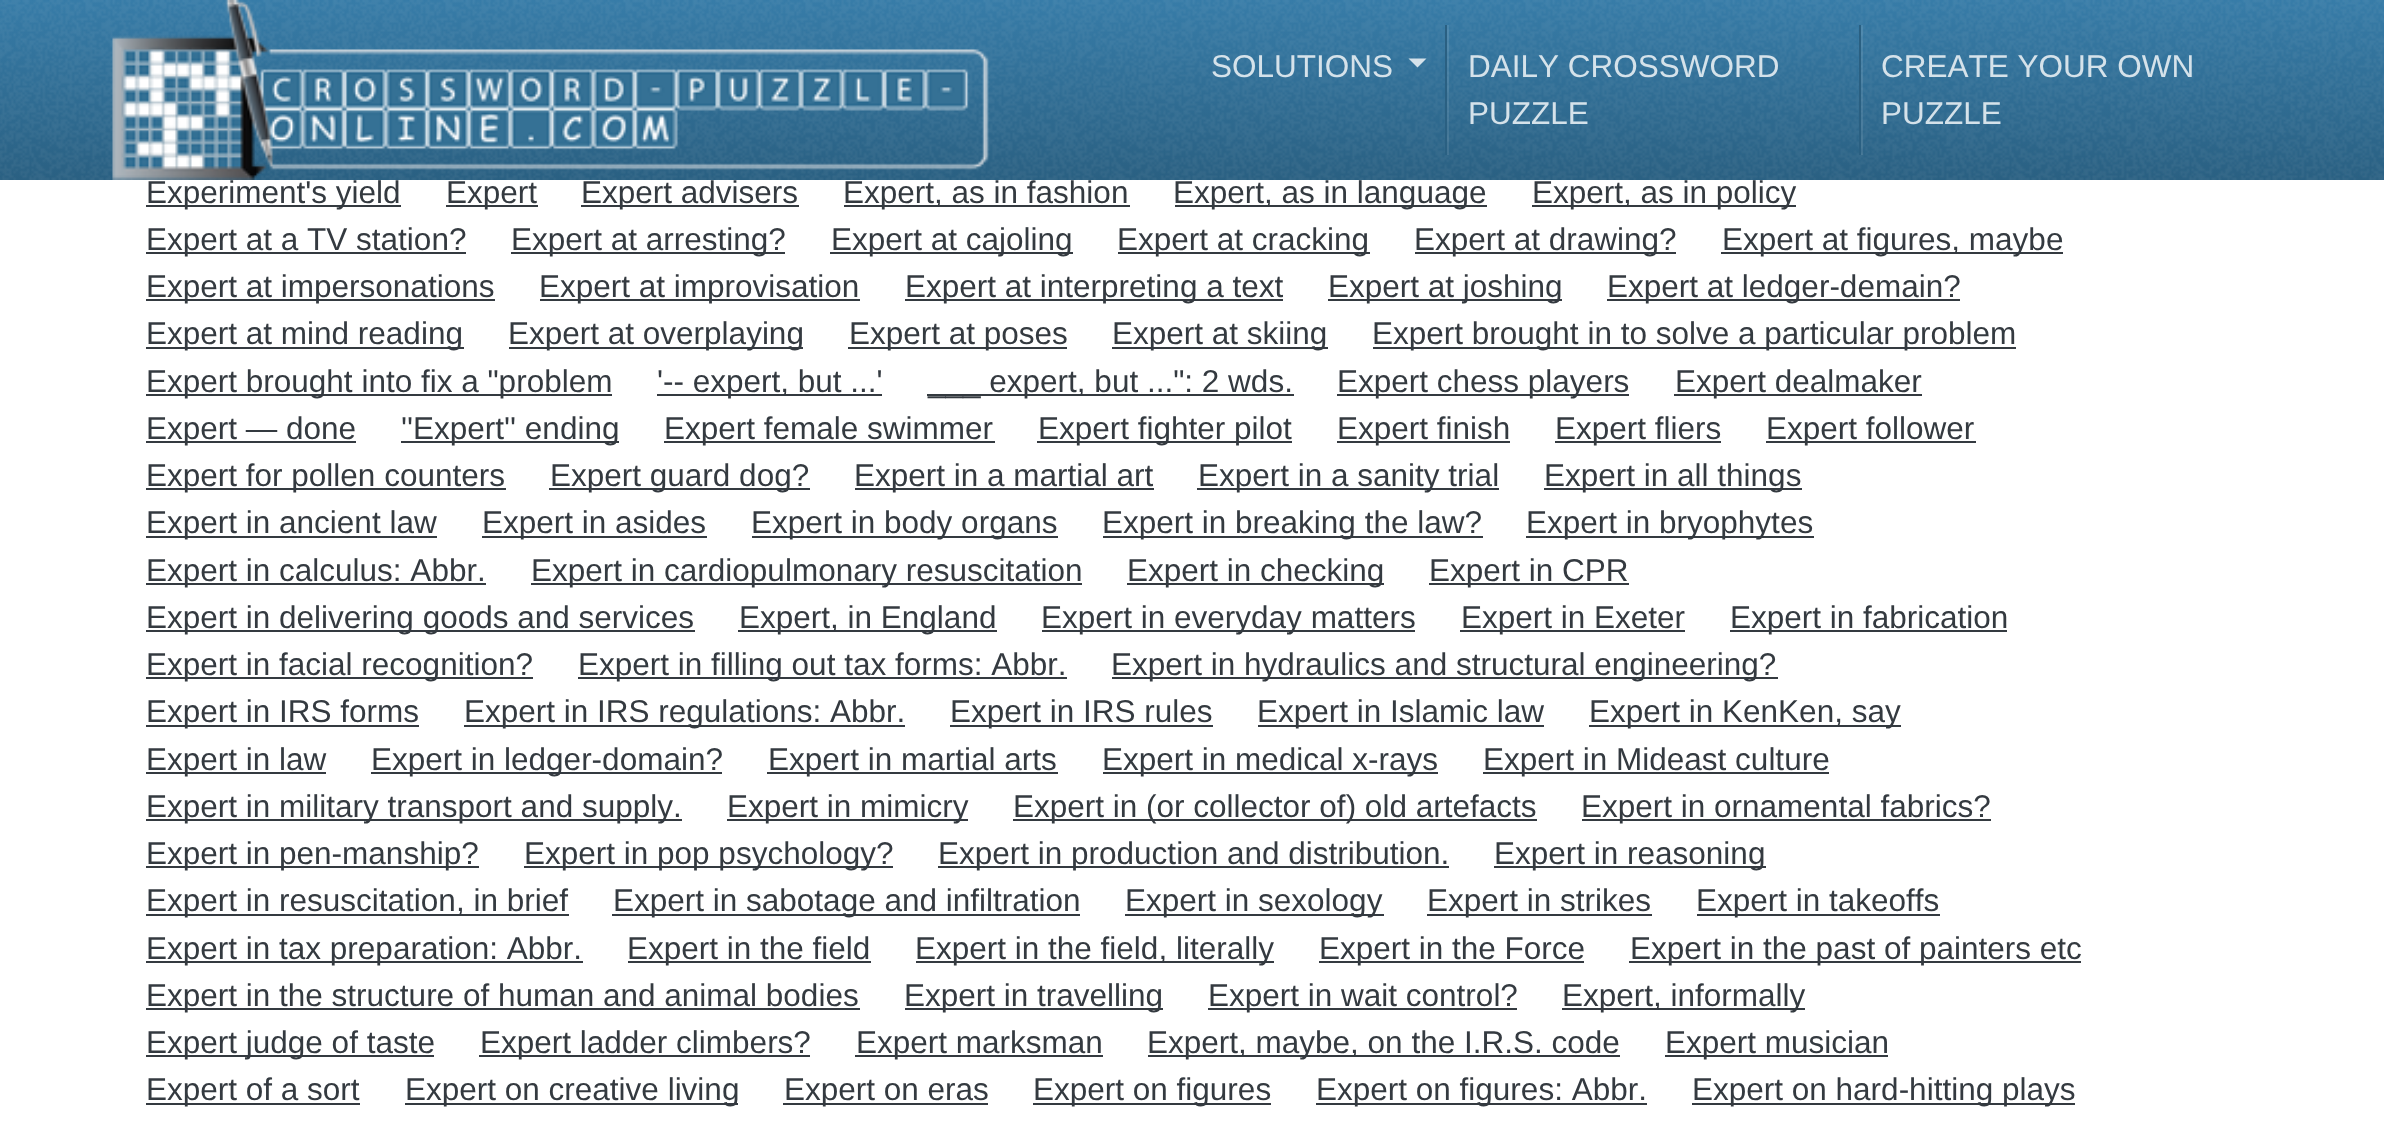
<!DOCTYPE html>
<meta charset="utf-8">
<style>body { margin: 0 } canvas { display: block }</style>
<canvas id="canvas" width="2384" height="1132"></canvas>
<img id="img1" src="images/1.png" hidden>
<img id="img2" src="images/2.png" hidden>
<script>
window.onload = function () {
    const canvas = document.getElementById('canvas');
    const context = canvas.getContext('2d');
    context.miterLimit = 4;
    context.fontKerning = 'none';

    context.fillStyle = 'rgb(255, 255, 255)';
    context.fillRect(0, 0, 2384, 1132);
    context.drawImage(document.getElementById('img1'), 0, 0, 2384, 180);
    context.drawImage(document.getElementById('img2'), 112, 0, 877, 180);
    context.fillStyle = 'rgb(42, 96, 130)';
    context.fillRect(1445, 25, 2, 130);
    context.fillStyle = 'rgb(213, 226, 234)';
    context.beginPath();
    context.moveTo(1408.5, 58.5);
    context.lineTo(1426.5, 58.5);
    context.lineTo(1417.5, 67.5);
    context.closePath();
    context.fill();
    context.fillStyle = 'rgb(42, 96, 130)';
    context.fillRect(1859, 25, 2, 130);
    context.fillStyle = 'rgba(255, 255, 255, 0.1)';
    context.fillRect(1447, 25, 2, 130);
    context.fillRect(1861, 25, 2, 130);
    context.fillStyle = 'rgb(52, 58, 64)';
    context.fillRect(146, 205, 255, 2);
    context.fillRect(446, 205, 92, 2);
    context.fillRect(581, 205, 218, 2);
    context.fillRect(844, 205, 286, 2);
    context.fillRect(1175, 205, 312, 2);
    context.fillRect(1532, 205, 264, 2);
    context.fillRect(146, 252, 320, 2);
    context.fillRect(511, 252, 274, 2);
    context.fillRect(830, 252, 243, 2);
    context.fillRect(1118, 252, 252, 2);
    context.fillRect(1415, 252, 261, 2);
    context.fillRect(1721, 252, 342, 2);
    context.fillRect(146, 299, 349, 2);
    context.fillRect(540, 299, 320, 2);
    context.fillRect(905, 299, 378, 2);
    context.fillRect(1328, 299, 234, 2);
    context.fillRect(1607, 299, 353, 2);
    context.fillRect(146, 347, 318, 2);
    context.fillRect(509, 347, 294, 2);
    context.fillRect(848, 347, 219, 2);
    context.fillRect(1112, 347, 216, 2);
    context.fillRect(1373, 347, 643, 2);
    context.fillRect(146, 394, 466, 2);
    context.fillRect(657, 394, 225, 2);
    context.fillRect(927, 394, 367, 2);
    context.fillRect(1337, 394, 292, 2);
    context.fillRect(1674, 394, 248, 2);
    context.fillRect(146, 441, 210, 2);
    context.fillRect(401, 441, 218, 2);
    context.fillRect(664, 441, 331, 2);
    context.fillRect(1037, 441, 255, 2);
    context.fillRect(1337, 441, 173, 2);
    context.fillRect(1555, 441, 166, 2);
    context.fillRect(1766, 441, 210, 2);
    context.fillRect(146, 488, 360, 2);
    context.fillRect(549, 488, 261, 2);
    context.fillRect(855, 488, 299, 2);
    context.fillRect(1197, 488, 302, 2);
    context.fillRect(1544, 488, 258, 2);
    context.fillRect(146, 536, 291, 2);
    context.fillRect(482, 536, 225, 2);
    context.fillRect(752, 536, 306, 2);
    context.fillRect(1103, 536, 380, 2);
    context.fillRect(1526, 536, 288, 2);
    context.fillRect(146, 583, 340, 2);
    context.fillRect(531, 583, 551, 2);
    context.fillRect(1127, 583, 257, 2);
    context.fillRect(1429, 583, 200, 2);
    context.fillRect(146, 630, 549, 2);
    context.fillRect(738, 630, 259, 2);
    context.fillRect(1042, 630, 373, 2);
    context.fillRect(1460, 630, 225, 2);
    context.fillRect(1730, 630, 277, 2);
    context.fillRect(146, 677, 387, 2);
    context.fillRect(578, 677, 489, 2);
    context.fillRect(1112, 677, 666, 2);
    context.fillRect(146, 725, 273, 2);
    context.fillRect(464, 725, 441, 2);
    context.fillRect(950, 725, 263, 2);
    context.fillRect(1258, 725, 286, 2);
    context.fillRect(1589, 725, 312, 2);
    context.fillRect(146, 772, 180, 2);
    context.fillRect(371, 772, 351, 2);
    context.fillRect(767, 772, 291, 2);
    context.fillRect(1103, 772, 335, 2);
    context.fillRect(1483, 772, 346, 2);
    context.fillRect(146, 819, 536, 2);
    context.fillRect(727, 819, 241, 2);
    context.fillRect(1013, 819, 524, 2);
    context.fillRect(1582, 819, 409, 2);
    context.fillRect(146, 866, 333, 2);
    context.fillRect(524, 866, 369, 2);
    context.fillRect(938, 866, 511, 2);
    context.fillRect(1494, 866, 272, 2);
    context.fillRect(146, 914, 423, 2);
    context.fillRect(612, 914, 468, 2);
    context.fillRect(1125, 914, 259, 2);
    context.fillRect(1427, 914, 225, 2);
    context.fillRect(1697, 914, 243, 2);
    context.fillRect(146, 961, 437, 2);
    context.fillRect(628, 961, 243, 2);
    context.fillRect(916, 961, 358, 2);
    context.fillRect(1319, 961, 265, 2);
    context.fillRect(1629, 961, 452, 2);
    context.fillRect(146, 1008, 714, 2);
    context.fillRect(905, 1008, 258, 2);
    context.fillRect(1208, 1008, 309, 2);
    context.fillRect(1562, 1008, 243, 2);
    context.fillRect(146, 1055, 288, 2);
    context.fillRect(479, 1055, 331, 2);
    context.fillRect(855, 1055, 248, 2);
    context.fillRect(1148, 1055, 472, 2);
    context.fillRect(1665, 1055, 223, 2);
    context.fillRect(146, 1103, 214, 2);
    context.fillRect(405, 1103, 333, 2);
    context.fillRect(783, 1103, 205, 2);
    context.fillRect(1033, 1103, 238, 2);
    context.fillRect(1316, 1103, 331, 2);
    context.fillRect(1692, 1103, 383, 2);
    context.font = '31.5px Liberation Sans';
    context.fillStyle = 'rgb(213, 226, 234)';
    context.fillText('SOLUTIONS', 1211, 77);
    context.fillText('DAILY CROSSWORD', 1468, 77);
    context.fillText('PUZZLE', 1468, 124);
    context.fillText('CREATE YOUR OWN', 1881, 77);
    context.fillText('PUZZLE', 1881, 124);
    context.fillStyle = 'rgb(52, 58, 64)';
    context.fillText('Experiment\'s yield', 146, 203);
    context.fillText('Expert', 446, 203);
    context.fillText('Expert advisers', 581, 203);
    context.fillText('Expert, as in fashion', 843, 203);
    context.fillText('Expert, as in language', 1173, 203);
    context.fillText('Expert, as in policy', 1532, 203);
    context.fillText('Expert at a TV station?', 146, 250);
    context.fillText('Expert at arresting?', 511, 250);
    context.fillText('Expert at cajoling', 831, 250);
    context.fillText('Expert at cracking', 1117, 250);
    context.fillText('Expert at drawing?', 1414, 250);
    context.fillText('Expert at figures, maybe', 1722, 250);
    context.fillText('Expert at impersonations', 146, 297);
    context.fillText('Expert at improvisation', 539, 297);
    context.fillText('Expert at interpreting a text', 905, 297);
    context.fillText('Expert at joshing', 1328, 297);
    context.fillText('Expert at ledger-demain?', 1607, 297);
    context.fillText('Expert at mind reading', 146, 344);
    context.fillText('Expert at overplaying', 508, 344);
    context.fillText('Expert at poses', 849, 344);
    context.fillText('Expert at skiing', 1112, 344);
    context.fillText('Expert brought in to solve a particular problem', 1372, 344);
    context.fillText('Expert brought into fix a "problem', 146, 392);
    context.fillText('\'-- expert, but ...\'', 657, 392);
    context.fillText('___ expert, but ...": 2 wds.', 928, 392);
    context.fillText('Expert chess players', 1337, 392);
    context.fillText('Expert dealmaker', 1675, 392);
    context.fillText('Expert — done', 146, 439);
    context.fillText('\'\'Expert\'\' ending', 401, 439);
    context.fillText('Expert female swimmer', 664, 439);
    context.fillText('Expert fighter pilot', 1038, 439);
    context.fillText('Expert finish', 1337, 439);
    context.fillText('Expert fliers', 1555, 439);
    context.fillText('Expert follower', 1766, 439);
    context.fillText('Expert for pollen counters', 146, 486);
    context.fillText('Expert guard dog?', 550, 486);
    context.fillText('Expert in a martial art', 854, 486);
    context.fillText('Expert in a sanity trial', 1198, 486);
    context.fillText('Expert in all things', 1544, 486);
    context.fillText('Expert in ancient law', 146, 533);
    context.fillText('Expert in asides', 482, 533);
    context.fillText('Expert in body organs', 751, 533);
    context.fillText('Expert in breaking the law?', 1102, 533);
    context.fillText('Expert in bryophytes', 1526, 533);
    context.fillText('Expert in calculus: Abbr.', 146, 581);
    context.fillText('Expert in cardiopulmonary resuscitation', 531, 581);
    context.fillText('Expert in checking', 1127, 581);
    context.fillText('Expert in CPR', 1429, 581);
    context.fillText('Expert in delivering goods and services', 146, 628);
    context.fillText('Expert, in England', 739, 628);
    context.fillText('Expert in everyday matters', 1041, 628);
    context.fillText('Expert in Exeter', 1461, 628);
    context.fillText('Expert in fabrication', 1730, 628);
    context.fillText('Expert in facial recognition?', 146, 675);
    context.fillText('Expert in filling out tax forms: Abbr.', 578, 675);
    context.fillText('Expert in hydraulics and structural engineering?', 1111, 675);
    context.fillText('Expert in IRS forms', 146, 722);
    context.fillText('Expert in IRS regulations: Abbr.', 464, 722);
    context.fillText('Expert in IRS rules', 950, 722);
    context.fillText('Expert in Islamic law', 1257, 722);
    context.fillText('Expert in KenKen, say', 1589, 722);
    context.fillText('Expert in law', 146, 770);
    context.fillText('Expert in ledger-domain?', 371, 770);
    context.fillText('Expert in martial arts', 768, 770);
    context.fillText('Expert in medical x-rays', 1102, 770);
    context.fillText('Expert in Mideast culture', 1483, 770);
    context.fillText('Expert in military transport and supply.', 146, 817);
    context.fillText('Expert in mimicry', 727, 817);
    context.fillText('Expert in (or collector of) old artefacts', 1013, 817);
    context.fillText('Expert in ornamental fabrics?', 1581, 817);
    context.fillText('Expert in pen-manship?', 146, 864);
    context.fillText('Expert in pop psychology?', 524, 864);
    context.fillText('Expert in production and distribution.', 938, 864);
    context.fillText('Expert in reasoning', 1494, 864);
    context.fillText('Expert in resuscitation, in brief', 146, 911);
    context.fillText('Expert in sabotage and infiltration', 613, 911);
    context.fillText('Expert in sexology', 1125, 911);
    context.fillText('Expert in strikes', 1427, 911);
    context.fillText('Expert in takeoffs', 1696, 911);
    context.fillText('Expert in tax preparation: Abbr.', 146, 959);
    context.fillText('Expert in the field', 627, 959);
    context.fillText('Expert in the field, literally', 915, 959);
    context.fillText('Expert in the Force', 1319, 959);
    context.fillText('Expert in the past of painters etc', 1630, 959);
    context.fillText('Expert in the structure of human and animal bodies', 146, 1006);
    context.fillText('Expert in travelling', 904, 1006);
    context.fillText('Expert in wait control?', 1208, 1006);
    context.fillText('Expert, informally', 1562, 1006);
    context.fillText('Expert judge of taste', 146, 1053);
    context.fillText('Expert ladder climbers?', 480, 1053);
    context.fillText('Expert marksman', 856, 1053);
    context.fillText('Expert, maybe, on the I.R.S. code', 1147, 1053);
    context.fillText('Expert musician', 1665, 1053);
    context.fillText('Expert of a sort', 146, 1100);
    context.fillText('Expert on creative living', 405, 1100);
    context.fillText('Expert on eras', 784, 1100);
    context.fillText('Expert on figures', 1033, 1100);
    context.fillText('Expert on figures: Abbr.', 1316, 1100);
    context.fillText('Expert on hard-hitting plays', 1692, 1100);
};
</script>
